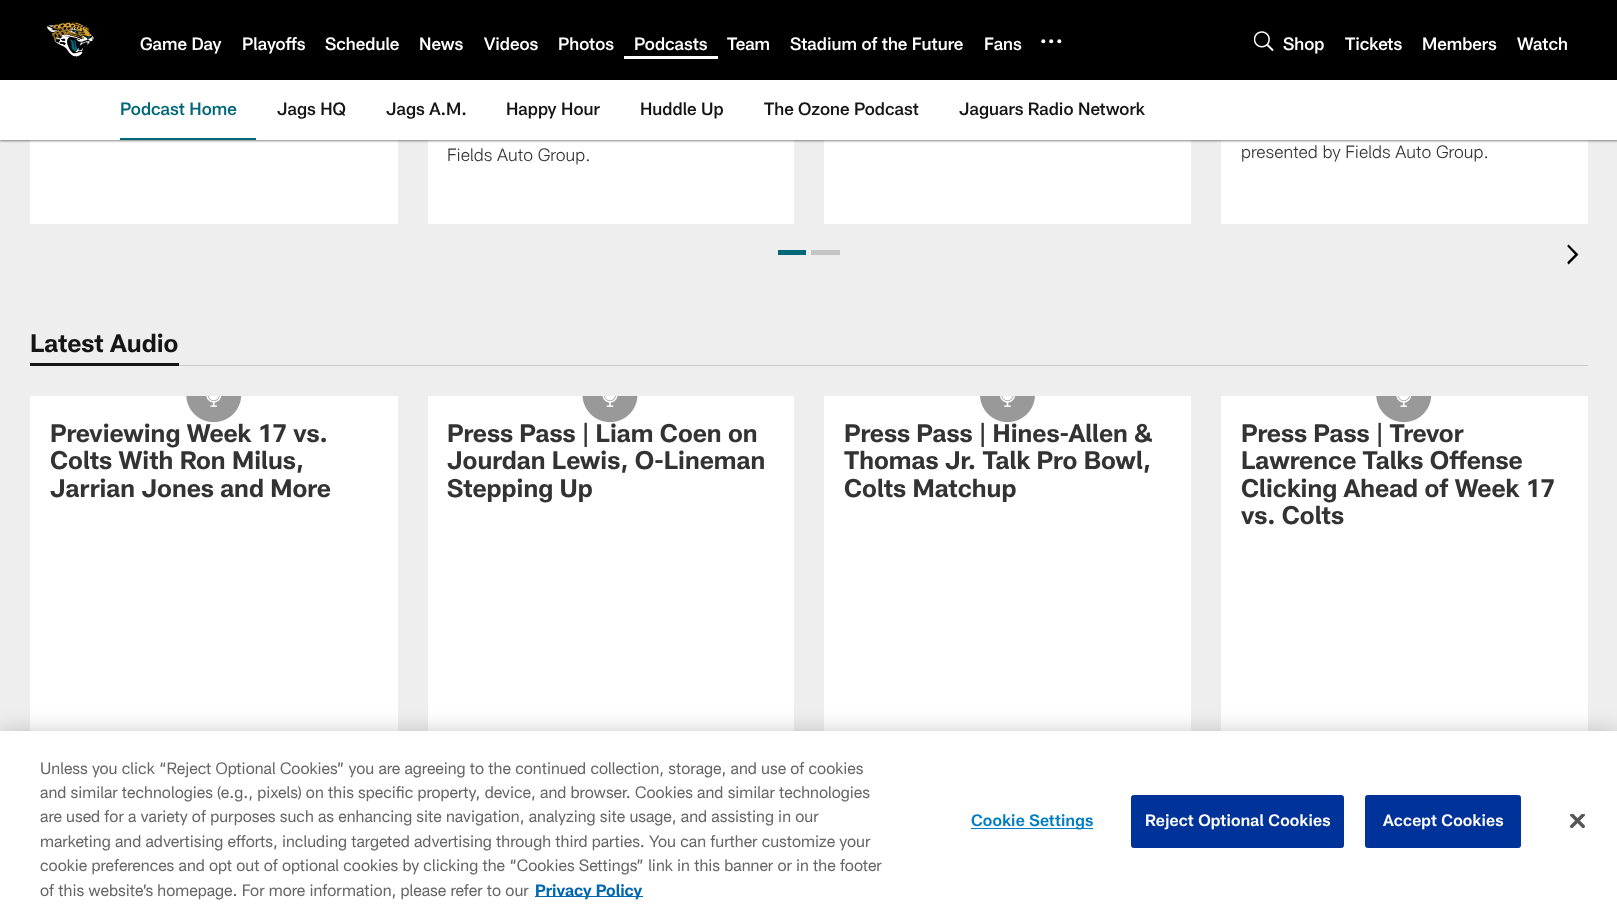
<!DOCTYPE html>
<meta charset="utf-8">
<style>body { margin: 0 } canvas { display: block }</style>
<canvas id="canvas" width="1617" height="915"></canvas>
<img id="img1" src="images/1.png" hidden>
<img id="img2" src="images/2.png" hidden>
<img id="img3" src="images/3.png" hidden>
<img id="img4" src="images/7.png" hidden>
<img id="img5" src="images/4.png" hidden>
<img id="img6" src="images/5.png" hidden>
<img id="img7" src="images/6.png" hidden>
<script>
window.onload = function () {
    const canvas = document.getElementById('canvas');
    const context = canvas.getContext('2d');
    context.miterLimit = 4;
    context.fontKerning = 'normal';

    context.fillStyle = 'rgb(238, 238, 238)';
    context.fillRect(0, 0, 1617, 915);
    context.fillStyle = 'rgb(0, 0, 0)';
    context.fillRect(0, 0, 1617, 80);
    context.drawImage(document.getElementById('img1'), 46, 22, 48, 35);
    context.fillStyle = 'rgb(255, 255, 255)';
    context.fillRect(624, 56, 94, 3);
    context.beginPath();
    context.arc(1059.3, 41.2, 2, 0, 2 * Math.PI);
    context.fill();
    context.beginPath();
    context.arc(1051.2, 41.2, 2, 0, 2 * Math.PI);
    context.fill();
    context.beginPath();
    context.arc(1043.3, 41.2, 2, 0, 2 * Math.PI);
    context.fill();
    context.drawImage(document.getElementById('img2'), 1254, 31, 20, 20);
    context.fillRect(30, 140, 368, 84);
    context.fillRect(428, 140, 366, 84);
    context.fillRect(824, 140, 367, 84);
    context.fillRect(1221, 140, 367, 84);
    context.fillStyle = 'rgba(0, 0, 0, 0.47)';
    context.filter = 'blur(1px)';
    context.beginPath();
    context.rect(0, 81, 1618, 60);
    context.fill();
    context.filter = 'none';
    context.fillStyle = 'rgb(255, 255, 255)';
    context.fillRect(0, 80, 1617, 60);
    context.fillStyle = 'rgb(0, 103, 120)';
    context.fillRect(120, 138, 136, 2);
    context.fillRect(778, 250, 28, 5);
    context.fillStyle = 'rgb(197, 197, 197)';
    context.fillRect(811, 250, 29, 5);
    context.fillStyle = 'rgb(0, 0, 0)';
    context.beginPath();
    context.moveTo(1575, 254.5);
    context.lineTo(1567.5, 262);
    context.lineTo(1567.5, 263);
    context.lineTo(1568.5, 264.5);
    context.lineTo(1578.5, 254.5);
    context.lineTo(1568.5, 244.5);
    context.lineTo(1567.5, 245.5);
    context.lineTo(1567.5, 246.5);
    context.closePath();
    context.fill();
    context.fillStyle = 'rgb(204, 204, 204)';
    context.fillRect(179, 365, 1409, 1);
    context.fillStyle = 'rgb(21, 21, 21)';
    context.fillRect(30, 363, 149, 3);
    context.fillStyle = 'rgb(255, 255, 255)';
    context.fillRect(30, 396, 368, 335);
    context.drawImage(document.getElementById('img3'), 186, 396, 56, 27);
    context.fillRect(428, 396, 366, 335);
    context.fillRect(824, 396, 367, 335);
    context.fillRect(1221, 396, 367, 335);
    context.fillStyle = 'rgba(0, 0, 0, 0.2)';
    context.filter = 'blur(11px)';
    context.beginPath();
    context.rect(0, 731, 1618, 184);
    context.fill();
    context.filter = 'none';
    context.fillStyle = 'rgb(255, 255, 255)';
    context.fillRect(0, 731, 1617, 184);
    context.fillStyle = 'rgb(0, 103, 177)';
    context.fillRect(535, 896, 108, 1);
    context.fillStyle = 'rgb(0, 125, 195)';
    context.fillRect(971, 828, 122, 1);
    context.fillStyle = 'rgb(0, 51, 153)';
    context.beginPath();
    context.roundRect(1131.5, 795.5, 212, 52, 2);
    context.fill();
    context.strokeStyle = 'rgb(0, 51, 153)';
    context.stroke();
    context.beginPath();
    context.roundRect(1365.5, 795.5, 155, 52, 2);
    context.fill();
    context.stroke();
    context.drawImage(document.getElementById('img4'), 1570, 814, 15, 15);
    context.font = '500 17.5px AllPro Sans';
    context.fillStyle = 'rgb(255, 255, 255)';
    context.fillText('Game Day', 140, 50);
    context.fillText('Playoffs', 242, 50);
    context.fillText('Schedule', 325, 50);
    context.fillText('News', 419, 50);
    context.fillText('Videos', 484, 50);
    context.fillText('Photos', 558, 50);
    context.fillText('Podcasts', 634, 50);
    context.fillText('Team', 727, 50);
    context.fillText('Stadium of the Future', 790, 50);
    context.fillText('Fans', 984, 50);
    context.fillText('Shop', 1283, 50);
    context.fillText('Tickets', 1345, 50);
    context.fillText('Members', 1422, 50);
    context.fillText('Watch', 1517, 50);
    context.fillStyle = 'rgb(0, 103, 120)';
    context.fillText('Podcast Home', 120, 115);
    context.fillStyle = 'rgb(21, 21, 21)';
    context.fillText('Jags HQ', 277, 115);
    context.fillText('Jags A.M.', 386, 115);
    context.fillText('Happy Hour', 506, 115);
    context.fillText('Huddle Up', 640, 115);
    context.fillText('The Ozone Podcast', 764, 115);
    context.fillText('Jaguars Radio Network', 959, 115);
    context.font = '300 17.5px AllPro Sans';
    context.fillStyle = 'rgb(51, 51, 51)';
    context.fillText('Fields Auto Group.', 447, 161);
    context.fillText('presented by Fields Auto Group.', 1241, 158);
    context.font = 'bold 25px AllPro Sans';
    context.fillStyle = 'rgb(21, 21, 21)';
    context.fillText('Latest Audio', 30, 352);
    context.fillStyle = 'rgb(51, 51, 51)';
    context.fillText('Previewing Week 17 vs.', 50, 442);
    context.fillText('Colts With Ron Milus,', 50, 469);
    context.fillText('Jarrian Jones and More', 50, 497);
    context.fillText('Press Pass | Liam Coen on', 447, 442);
    context.drawImage(document.getElementById('img5'), 582, 396, 56, 27);
    context.fillText('Jourdan Lewis, O-Lineman', 447, 469);
    context.fillText('Stepping Up', 447, 497);
    context.fillText('Press Pass | Hines-Allen &', 844, 442);
    context.drawImage(document.getElementById('img6'), 980, 396, 55, 27);
    context.fillText('Thomas Jr. Talk Pro Bowl,', 844, 469);
    context.fillText('Colts Matchup', 844, 497);
    context.fillText('Press Pass | Trevor', 1241, 442);
    context.drawImage(document.getElementById('img7'), 1376, 396, 56, 27);
    context.fillText('Lawrence Talks Offense', 1241, 469);
    context.fillText('Clicking Ahead of Week 17', 1241, 497);
    context.fillText('vs. Colts', 1241, 524);
    context.font = '16.25px AllPro Sans';
    context.fillStyle = 'rgb(102, 102, 102)';
    context.fillText('Unless you click “Reject Optional Cookies” you are agreeing to the continued collection, storage, and use of cookies', 40, 774);
    context.fillText('and similar technologies (e.g., pixels) on this specific property, device, and browser. Cookies and similar technologies', 40, 798);
    context.fillText('are used for a variety of purposes such as enhancing site navigation, analyzing site usage, and assisting in our', 40, 822);
    context.fillText('marketing and advertising efforts, including targeted advertising through third parties. You can further customize your', 40, 847);
    context.fillText('cookie preferences and opt out of optional cookies by clicking the “Cookies Settings” link in this banner or in the footer', 40, 871);
    context.fillText('of this website’s homepage. For more information, please refer to our', 40, 896);
    context.font = 'bold 16.25px AllPro Sans';
    context.fillStyle = 'rgb(0, 103, 177)';
    context.fillText('Privacy Policy', 535, 896);
    context.letterSpacing = '0.2px';
    context.font = '600 16.25px AllPro Sans';
    context.fillStyle = 'rgb(0, 125, 195)';
    context.fillText('Cookie Settings', 971, 826);
    context.fillStyle = 'rgb(255, 255, 255)';
    context.fillText('Reject Optional Cookies', 1145, 826);
    context.fillText('Accept Cookies', 1383, 826);
};
</script>
